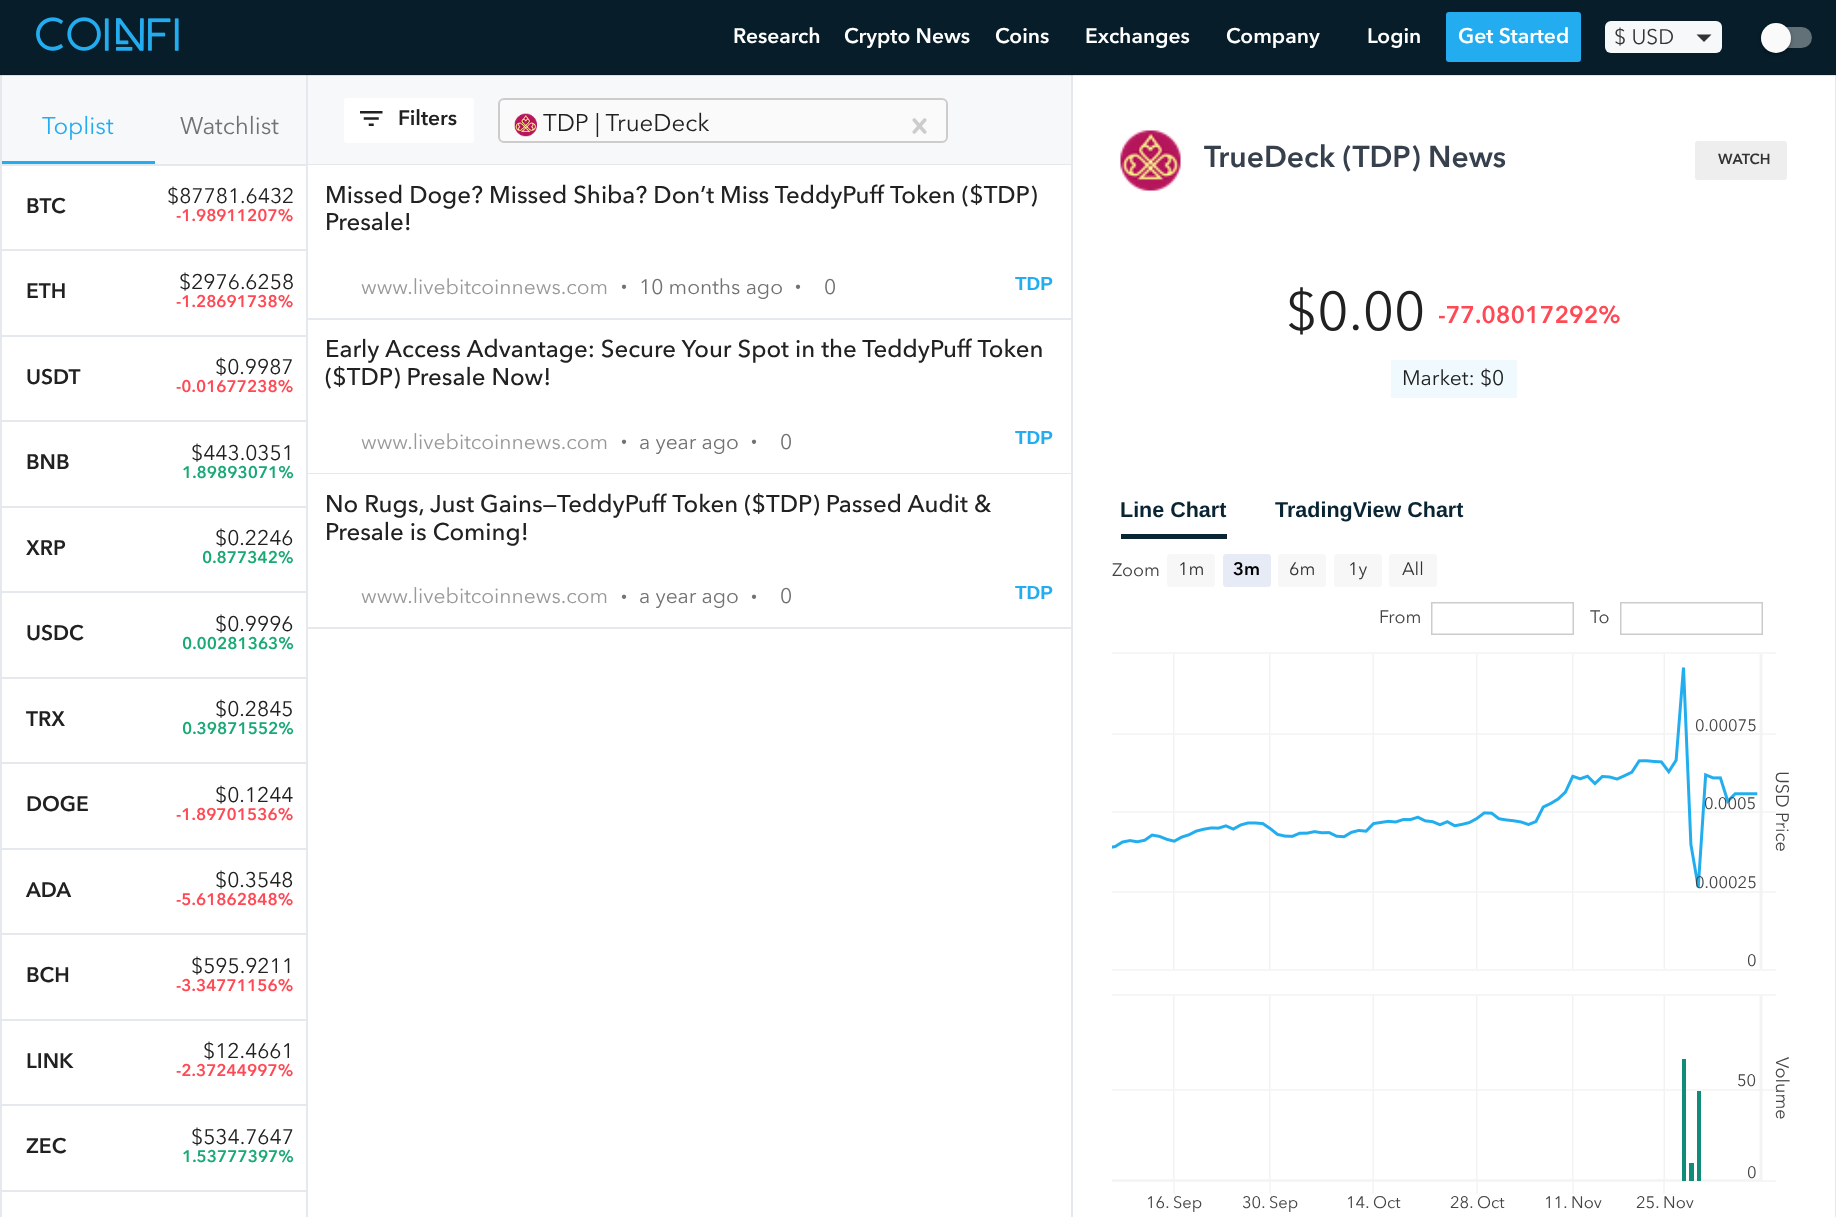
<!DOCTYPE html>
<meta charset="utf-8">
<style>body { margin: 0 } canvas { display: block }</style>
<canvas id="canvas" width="1836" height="1217"></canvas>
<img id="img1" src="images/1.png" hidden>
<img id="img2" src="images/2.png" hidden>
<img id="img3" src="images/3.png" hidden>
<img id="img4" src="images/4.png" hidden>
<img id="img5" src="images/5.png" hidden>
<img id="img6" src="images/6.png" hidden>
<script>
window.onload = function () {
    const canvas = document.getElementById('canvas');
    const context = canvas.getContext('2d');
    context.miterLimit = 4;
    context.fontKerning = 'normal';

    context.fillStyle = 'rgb(255, 255, 255)';
    context.fillRect(0, 0, 1836, 1217);
    context.fillStyle = 'rgb(7, 29, 41)';
    context.fillRect(0, 0, 1836, 74);
    context.fillStyle = 'rgb(6, 26, 37)';
    context.fillRect(0, 74, 1836, 1);
    context.drawImage(document.getElementById('img1'), 36, 17, 143, 34);
    context.fillStyle = 'rgb(35, 173, 240)';
    context.beginPath();
    context.roundRect(1446, 12, 135, 50, 3);
    context.fill();
    context.fillStyle = 'rgb(246, 248, 250)';
    context.beginPath();
    context.roundRect(1605, 21, 117, 32, 6);
    context.fill();
    context.fillStyle = 'rgb(51, 51, 51)';
    context.beginPath();
    context.moveTo(1696.5, 34.5);
    context.lineTo(1704, 42);
    context.lineTo(1711.5, 34.5);
    context.closePath();
    context.fill();
    context.fillStyle = 'rgb(98, 112, 120)';
    context.beginPath();
    context.roundRect(1761, 27, 51, 21, 10.5);
    context.fill();
    context.fillStyle = 'rgba(0, 0, 0, 0.12)';
    context.filter = 'blur(1px)';
    context.beginPath();
    context.roundRect(1763, 27, 27, 27, 13.5);
    context.fill();
    context.filter = 'none';
    context.fillStyle = 'rgba(0, 0, 0, 0.14)';
    context.filter = 'blur(1px)';
    context.beginPath();
    context.roundRect(1761, 24, 30, 30, 15);
    context.fill();
    context.filter = 'none';
    context.fillStyle = 'rgba(0, 0, 0, 0.2)';
    context.filter = 'blur(2px)';
    context.beginPath();
    context.roundRect(1761, 24, 30, 30, 15);
    context.fill();
    context.filter = 'none';
    context.fillStyle = 'rgb(250, 250, 250)';
    context.beginPath();
    context.arc(1776, 38, 15, 0, 2 * Math.PI);
    context.fill();
    context.fillStyle = 'rgb(230, 230, 230)';
    context.fillRect(1073, 75, 763, 1);
    context.fillStyle = 'rgb(229, 232, 237)';
    context.fillRect(0, 75, 2, 1142);
    context.fillStyle = 'rgb(206, 209, 213)';
    context.fillRect(0, 75, 2, 1);
    context.fillStyle = 'rgb(247, 248, 250)';
    context.fillRect(2, 76, 304, 88);
    context.fillStyle = 'rgb(222, 223, 225)';
    context.fillRect(2, 75, 304, 1);
    context.fillStyle = 'rgb(229, 232, 237)';
    context.fillRect(2, 164, 304, 2);
    context.fillStyle = 'rgb(35, 173, 240)';
    context.fillRect(2, 161, 153, 3);
    context.fillStyle = 'rgb(229, 232, 237)';
    context.fillRect(2, 249, 304, 2);
    context.fillRect(2, 335, 304, 2);
    context.fillRect(2, 420, 304, 2);
    context.fillRect(2, 506, 304, 2);
    context.fillRect(2, 591, 304, 2);
    context.fillRect(2, 677, 304, 2);
    context.fillRect(2, 762, 304, 2);
    context.fillRect(2, 848, 304, 2);
    context.fillRect(2, 933, 304, 2);
    context.fillRect(2, 1019, 304, 2);
    context.fillRect(2, 1104, 304, 2);
    context.fillRect(2, 1190, 304, 2);
    context.fillRect(306, 75, 2, 1142);
    context.fillStyle = 'rgb(206, 209, 213)';
    context.fillRect(306, 75, 2, 1);
    context.fillStyle = 'rgb(247, 248, 250)';
    context.fillRect(308, 76, 763, 88);
    context.fillStyle = 'rgb(222, 223, 225)';
    context.fillRect(308, 75, 763, 1);
    context.fillStyle = 'rgb(229, 232, 237)';
    context.fillRect(308, 164, 763, 1);
    context.fillStyle = 'rgb(255, 255, 255)';
    context.beginPath();
    context.roundRect(344, 98, 130, 45, 3);
    context.fill();
    context.drawImage(document.getElementById('img2'), 360, 111, 23, 15);
    context.fillStyle = 'rgb(250, 250, 250)';
    context.beginPath();
    context.roundRect(499, 99, 448, 43, 5);
    context.fill();
    context.strokeStyle = 'rgb(204, 204, 204)';
    context.lineWidth = 2;
    context.stroke();
    context.drawImage(document.getElementById('img3'), 514, 113, 23, 24);
    context.drawImage(document.getElementById('img4'), 912, 118, 15, 16);
    context.fillStyle = 'rgb(229, 232, 237)';
    context.fillRect(308, 318, 763, 2);
    context.fillRect(308, 473, 763, 1);
    context.fillRect(308, 627, 763, 2);
    context.fillRect(1835, 75, 1, 1142);
    context.fillStyle = 'rgb(206, 209, 213)';
    context.fillRect(1835, 75, 1, 1);
    context.fillStyle = 'rgb(229, 232, 237)';
    context.fillRect(1071, 75, 2, 1142);
    context.fillStyle = 'rgb(206, 209, 213)';
    context.fillRect(1071, 75, 2, 1);
    context.drawImage(document.getElementById('img5'), 1120, 130, 61, 61);
    context.fillStyle = 'rgb(238, 238, 238)';
    context.beginPath();
    context.roundRect(1695, 141, 92, 39, 3);
    context.fill();
    context.fillStyle = 'rgb(239, 249, 254)';
    context.fillRect(1391, 360, 126, 38);
    context.fillStyle = 'rgb(9, 37, 52)';
    context.fillRect(1121, 534, 106, 5);
    context.drawImage(document.getElementById('img6'), 1112, 554, 664, 640);
    context.font = '600 21px Avenir Next';
    context.fillStyle = 'rgb(255, 255, 255)';
    context.fillText('Research', 733, 43);
    context.fillText('Crypto News', 844, 43);
    context.fillText('Coins', 995, 43);
    context.fillText('Exchanges', 1085, 43);
    context.fillText('Company', 1226, 43);
    context.fillText('Login', 1367, 43);
    context.fillText('Get Started', 1458, 43);
    context.font = '21px Avenir Next';
    context.fillStyle = 'rgb(51, 51, 51)';
    context.fillText('$ USD', 1614, 44);
    context.font = '24px Avenir Next';
    context.fillStyle = 'rgb(35, 173, 240)';
    context.fillText('Toplist', 42, 134);
    context.fillStyle = 'rgb(114, 114, 115)';
    context.fillText('Watchlist', 180, 134);
    context.font = '600 21px Avenir Next';
    context.fillStyle = 'rgb(33, 33, 33)';
    context.fillText('BTC', 26, 213);
    context.font = '21px Avenir Next';
    context.fillText('$87781.6432', 167, 203);
    context.font = '600 16.75px Avenir Next';
    context.fillStyle = 'rgb(255, 73, 84)';
    context.fillText('-1.98911207%', 176, 221);
    context.font = '600 21px Avenir Next';
    context.fillStyle = 'rgb(33, 33, 33)';
    context.fillText('ETH', 26, 298);
    context.font = '21px Avenir Next';
    context.fillText('$2976.6258', 179, 289);
    context.font = '600 16.75px Avenir Next';
    context.fillStyle = 'rgb(255, 73, 84)';
    context.fillText('-1.28691738%', 176, 307);
    context.font = '600 21px Avenir Next';
    context.fillStyle = 'rgb(33, 33, 33)';
    context.fillText('USDT', 26, 384);
    context.font = '21px Avenir Next';
    context.fillText('$0.9987', 215, 374);
    context.font = '600 16.75px Avenir Next';
    context.fillStyle = 'rgb(255, 73, 84)';
    context.fillText('-0.01677238%', 176, 392);
    context.font = '600 21px Avenir Next';
    context.fillStyle = 'rgb(33, 33, 33)';
    context.fillText('BNB', 26, 469);
    context.font = '21px Avenir Next';
    context.fillText('$443.0351', 191, 460);
    context.font = '600 16.75px Avenir Next';
    context.fillStyle = 'rgb(25, 169, 116)';
    context.fillText('1.89893071%', 182, 478);
    context.font = '600 21px Avenir Next';
    context.fillStyle = 'rgb(33, 33, 33)';
    context.fillText('XRP', 26, 555);
    context.font = '21px Avenir Next';
    context.fillText('$0.2246', 215, 545);
    context.font = '600 16.75px Avenir Next';
    context.fillStyle = 'rgb(25, 169, 116)';
    context.fillText('0.877342%', 202, 563);
    context.font = '600 21px Avenir Next';
    context.fillStyle = 'rgb(33, 33, 33)';
    context.fillText('USDC', 26, 640);
    context.font = '21px Avenir Next';
    context.fillText('$0.9996', 215, 631);
    context.font = '600 16.75px Avenir Next';
    context.fillStyle = 'rgb(25, 169, 116)';
    context.fillText('0.00281363%', 182, 649);
    context.font = '600 21px Avenir Next';
    context.fillStyle = 'rgb(33, 33, 33)';
    context.fillText('TRX', 26, 726);
    context.font = '21px Avenir Next';
    context.fillText('$0.2845', 215, 716);
    context.font = '600 16.75px Avenir Next';
    context.fillStyle = 'rgb(25, 169, 116)';
    context.fillText('0.39871552%', 182, 734);
    context.font = '600 21px Avenir Next';
    context.fillStyle = 'rgb(33, 33, 33)';
    context.fillText('DOGE', 26, 811);
    context.font = '21px Avenir Next';
    context.fillText('$0.1244', 215, 802);
    context.font = '600 16.75px Avenir Next';
    context.fillStyle = 'rgb(255, 73, 84)';
    context.fillText('-1.89701536%', 176, 820);
    context.font = '600 21px Avenir Next';
    context.fillStyle = 'rgb(33, 33, 33)';
    context.fillText('ADA', 26, 897);
    context.font = '21px Avenir Next';
    context.fillText('$0.3548', 215, 887);
    context.font = '600 16.75px Avenir Next';
    context.fillStyle = 'rgb(255, 73, 84)';
    context.fillText('-5.61862848%', 176, 905);
    context.font = '600 21px Avenir Next';
    context.fillStyle = 'rgb(33, 33, 33)';
    context.fillText('BCH', 26, 982);
    context.font = '21px Avenir Next';
    context.fillText('$595.9211', 191, 973);
    context.font = '600 16.75px Avenir Next';
    context.fillStyle = 'rgb(255, 73, 84)';
    context.fillText('-3.34771156%', 176, 991);
    context.font = '600 21px Avenir Next';
    context.fillStyle = 'rgb(33, 33, 33)';
    context.fillText('LINK', 26, 1068);
    context.font = '21px Avenir Next';
    context.fillText('$12.4661', 203, 1058);
    context.font = '600 16.75px Avenir Next';
    context.fillStyle = 'rgb(255, 73, 84)';
    context.fillText('-2.37244997%', 176, 1076);
    context.font = '600 21px Avenir Next';
    context.fillStyle = 'rgb(33, 33, 33)';
    context.fillText('ZEC', 26, 1153);
    context.font = '21px Avenir Next';
    context.fillText('$534.7647', 191, 1144);
    context.font = '600 16.75px Avenir Next';
    context.fillStyle = 'rgb(25, 169, 116)';
    context.fillText('1.53777397%', 182, 1162);
    context.font = '600 21px Avenir Next';
    context.fillStyle = 'rgb(33, 33, 33)';
    context.fillText('Filters', 398, 125);
    context.font = '24px Avenir Next';
    context.fillText('TDP | TrueDeck', 543, 131);
    context.font = '500 24px Avenir Next';
    context.fillText('Missed Doge? Missed Shiba? Don’t Miss TeddyPuff Token ($TDP)', 325, 203);
    context.fillText('Presale!', 325, 230);
    context.font = '21px Avenir Next';
    context.fillStyle = 'rgb(153, 153, 153)';
    context.fillText('www.livebitcoinnews.com', 361, 294);
    context.font = '12px Avenir Next';
    context.fillStyle = 'rgb(114, 114, 115)';
    context.fillText('•', 621, 291);
    context.font = '21px Avenir Next';
    context.fillText('10 months ago', 639, 294);
    context.font = '12px Avenir Next';
    context.fillText('•', 795, 291);
    context.font = '21px Avenir Next';
    context.fillText('0', 824, 294);
    context.font = 'bold 19px Liberation Sans';
    context.fillStyle = 'rgb(35, 173, 240)';
    context.fillText('TDP', 1015, 290);
    context.font = '500 24px Avenir Next';
    context.fillStyle = 'rgb(33, 33, 33)';
    context.fillText('Early Access Advantage: Secure Your Spot in the TeddyPuff Token', 325, 357);
    context.fillText('($TDP) Presale Now!', 325, 385);
    context.font = '21px Avenir Next';
    context.fillStyle = 'rgb(153, 153, 153)';
    context.fillText('www.livebitcoinnews.com', 361, 449);
    context.font = '12px Avenir Next';
    context.fillStyle = 'rgb(114, 114, 115)';
    context.fillText('•', 621, 446);
    context.font = '21px Avenir Next';
    context.fillText('a year ago', 639, 449);
    context.font = '12px Avenir Next';
    context.fillText('•', 751, 446);
    context.font = '21px Avenir Next';
    context.fillText('0', 780, 449);
    context.font = 'bold 19px Liberation Sans';
    context.fillStyle = 'rgb(35, 173, 240)';
    context.fillText('TDP', 1015, 444);
    context.font = '500 24px Avenir Next';
    context.fillStyle = 'rgb(33, 33, 33)';
    context.fillText('No Rugs, Just Gains—TeddyPuff Token ($TDP) Passed Audit &', 325, 512);
    context.fillText('Presale is Coming!', 325, 540);
    context.font = '21px Avenir Next';
    context.fillStyle = 'rgb(153, 153, 153)';
    context.fillText('www.livebitcoinnews.com', 361, 603);
    context.font = '12px Avenir Next';
    context.fillStyle = 'rgb(114, 114, 115)';
    context.fillText('•', 621, 601);
    context.font = '21px Avenir Next';
    context.fillText('a year ago', 639, 603);
    context.font = '12px Avenir Next';
    context.fillText('•', 751, 601);
    context.font = '21px Avenir Next';
    context.fillText('0', 780, 603);
    context.font = 'bold 19px Liberation Sans';
    context.fillStyle = 'rgb(35, 173, 240)';
    context.fillText('TDP', 1015, 599);
    context.font = '600 30px Avenir Next';
    context.fillStyle = 'rgb(55, 64, 77)';
    context.fillText('TrueDeck (TDP) News', 1204, 167);
    context.font = '600 14.5px Avenir Next';
    context.fillStyle = 'rgb(51, 51, 51)';
    context.fillText('WATCH', 1718, 164);
    context.font = '54px Avenir Next';
    context.fillStyle = 'rgb(33, 33, 33)';
    context.fillText('$0.00', 1286, 330);
    context.font = '600 24px Avenir Next';
    context.fillStyle = 'rgb(255, 73, 84)';
    context.fillText('-77.08017292%', 1438, 323);
    context.font = '21px Avenir Next';
    context.fillStyle = 'rgb(33, 33, 33)';
    context.fillText('Market: $0', 1402, 385);
    context.font = 'bold 21.5px Liberation Sans';
    context.fillStyle = 'rgb(9, 37, 52)';
    context.fillText('Line Chart', 1120, 517);
    context.fillText('TradingView Chart', 1275, 517);
    context.font = '18px Avenir Next';
    context.fillStyle = 'rgb(68, 68, 68)';
    context.fillText('Zoom', 1112, 576);
    context.fillStyle = 'rgb(51, 51, 51)';
    context.fillText('1m', 1178, 575);
    context.font = '600 18px Avenir Next';
    context.fillStyle = 'rgb(0, 0, 0)';
    context.fillText('3m', 1233, 575);
    context.font = '18px Avenir Next';
    context.fillStyle = 'rgb(51, 51, 51)';
    context.fillText('6m', 1289, 575);
    context.fillText('1y', 1348, 575);
    context.fillText('All', 1402, 575);
    context.fillStyle = 'rgb(68, 68, 68)';
    context.fillText('From', 1379, 623);
    context.fillText('To', 1590, 623);
    context.font = '16.5px Avenir Next';
    context.fillText('0.00075', 1695, 731);
    context.fillText('0.0005', 1704, 809);
    context.font = '18px Avenir Next';
    context.save();
    context.translate(1776, 771);
    context.rotate(90 * Math.PI / 180);
    context.fillText('USD Price', 0, 0);
    context.restore();
    context.font = '16.5px Avenir Next';
    context.fillText('0.00025', 1695, 888);
    context.fillText('0', 1747, 966);
    context.fillText('50', 1737, 1086);
    context.font = '18px Avenir Next';
    context.save();
    context.translate(1776, 1057);
    context.rotate(90 * Math.PI / 180);
    context.fillText('Volume', 0, 0);
    context.restore();
    context.font = '16.5px Avenir Next';
    context.fillText('0', 1747, 1178);
    context.fillText('16. Sep', 1146, 1208);
    context.fillText('30. Sep', 1242, 1208);
    context.fillText('14. Oct', 1346, 1208);
    context.fillText('28. Oct', 1450, 1208);
    context.fillText('11. Nov', 1544, 1208);
    context.fillText('25. Nov', 1636, 1208);
};
</script>
